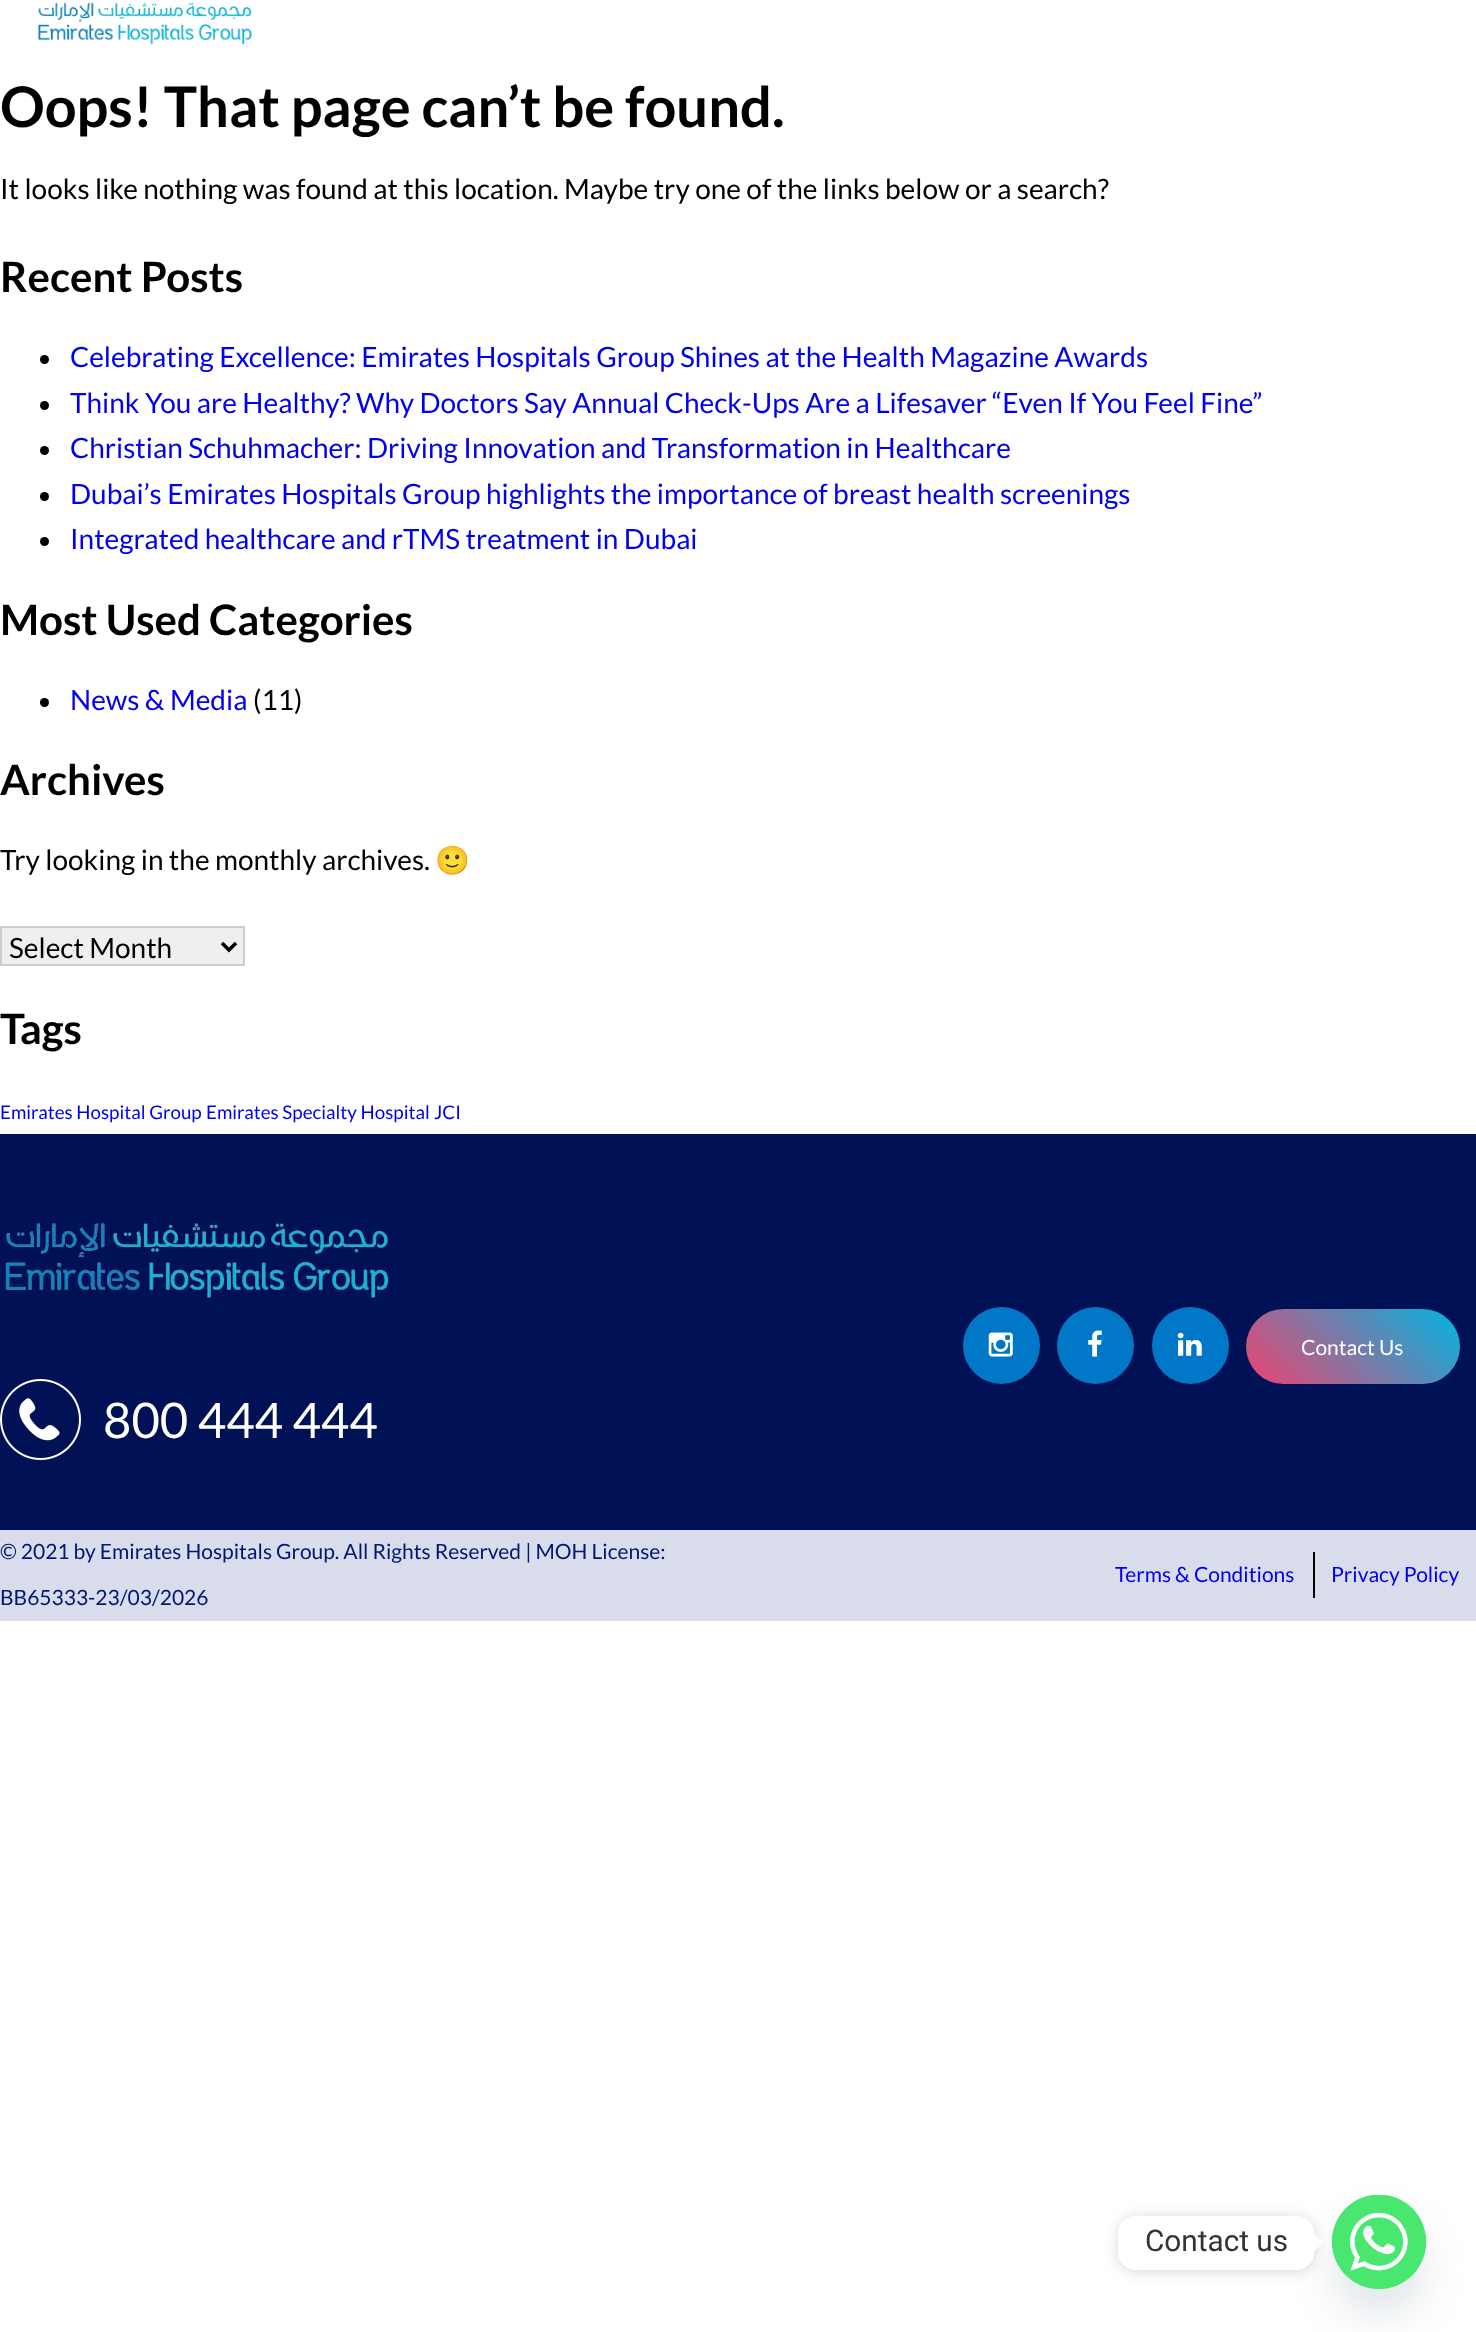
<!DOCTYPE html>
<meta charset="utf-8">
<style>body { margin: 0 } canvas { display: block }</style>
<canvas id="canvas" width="1476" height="2332"></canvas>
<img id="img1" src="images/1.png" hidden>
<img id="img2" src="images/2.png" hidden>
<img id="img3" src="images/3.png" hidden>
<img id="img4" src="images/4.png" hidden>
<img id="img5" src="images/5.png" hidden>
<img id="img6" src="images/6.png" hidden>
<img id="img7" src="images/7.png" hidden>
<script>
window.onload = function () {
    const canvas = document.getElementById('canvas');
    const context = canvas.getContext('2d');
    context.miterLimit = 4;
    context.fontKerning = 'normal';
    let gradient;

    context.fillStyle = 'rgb(255, 255, 255)';
    context.fillRect(0, 0, 1476, 2332);
    context.drawImage(document.getElementById('img1'), 37, 2, 215, 43);
    context.fillStyle = 'rgb(0, 0, 0)';
    context.beginPath();
    context.arc(44.5, 359.5, 4.5, 0, 2 * Math.PI);
    context.fill();
    context.beginPath();
    context.arc(44.5, 405.5, 4.5, 0, 2 * Math.PI);
    context.fill();
    context.beginPath();
    context.arc(44.5, 450.5, 4.5, 0, 2 * Math.PI);
    context.fill();
    context.beginPath();
    context.arc(44.5, 496.5, 4.5, 0, 2 * Math.PI);
    context.fill();
    context.beginPath();
    context.arc(44.5, 541.5, 4.5, 0, 2 * Math.PI);
    context.fill();
    context.beginPath();
    context.arc(44.5, 702.5, 4.5, 0, 2 * Math.PI);
    context.fill();
    context.fillStyle = 'rgb(239, 239, 239)';
    context.beginPath();
    context.rect(1, 927, 243, 38);
    context.fill();
    context.strokeStyle = 'rgb(204, 204, 204)';
    context.lineWidth = 2;
    context.stroke();
    context.beginPath();
    context.moveTo(222, 943);
    context.lineTo(229, 950);
    context.lineTo(236, 943);
    context.strokeStyle = 'rgb(0, 0, 0)';
    context.lineWidth = 3.5;
    context.stroke();
    context.fillStyle = 'rgb(0, 18, 85)';
    context.fillRect(0, 1134, 1476, 396);
    context.fillStyle = 'rgb(1, 119, 200)';
    context.beginPath();
    context.arc(1001.5, 1345.5, 38.5, 0, 2 * Math.PI);
    context.fill();
    context.drawImage(document.getElementById('img2'), 988, 1332, 25, 25);
    context.beginPath();
    context.arc(1095.5, 1345.5, 38.5, 0, 2 * Math.PI);
    context.fill();
    context.drawImage(document.getElementById('img3'), 1088, 1330, 14, 27);
    context.beginPath();
    context.arc(1190.5, 1345.5, 38.5, 0, 2 * Math.PI);
    context.fill();
    context.drawImage(document.getElementById('img4'), 1177, 1332, 25, 24);
    gradient = context.createLinearGradient(1282, 1419, 1423, 1274);
    gradient.addColorStop(0, 'rgb(239, 66, 111)');
    gradient.addColorStop(1, 'rgb(0, 181, 226)');
    context.fillStyle = gradient;
    context.beginPath();
    context.roundRect(1246, 1309, 214, 75, 37.5);
    context.fill();
    context.drawImage(document.getElementById('img5'), 5, 1223, 384, 75);
    context.drawImage(document.getElementById('img6'), 0, 1379, 81, 81);
    context.fillStyle = 'rgb(217, 220, 234)';
    context.fillRect(0, 1530, 1476, 91);
    context.fillStyle = 'rgb(0, 0, 0)';
    context.fillRect(1313, 1552, 2, 46);
    context.fillStyle = 'rgba(73, 104, 126, 0.16)';
    context.filter = 'blur(21px)';
    context.beginPath();
    context.roundRect(1332, 2223, 94, 94, 47);
    context.fill();
    context.filter = 'none';
    context.fillStyle = 'rgb(73, 230, 112)';
    context.beginPath();
    context.arc(1379, 2242, 47, 0, 2 * Math.PI);
    context.fill();
    context.drawImage(document.getElementById('img7'), 1332, 2195, 94, 94);
    context.save();
    context.beginPath();
    context.moveTo(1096, 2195);
    context.lineTo(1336, 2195);
    context.lineTo(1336, 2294);
    context.lineTo(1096, 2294);
    context.closePath();
    context.moveTo(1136, 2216);
    context.lineTo(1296, 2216);
    context.bezierCurveTo(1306, 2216, 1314, 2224, 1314, 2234);
    context.lineTo(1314, 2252);
    context.bezierCurveTo(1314, 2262, 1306, 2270, 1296, 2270);
    context.lineTo(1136, 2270);
    context.bezierCurveTo(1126, 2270, 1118, 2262, 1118, 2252);
    context.lineTo(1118, 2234);
    context.bezierCurveTo(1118, 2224, 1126, 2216, 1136, 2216);
    context.closePath();
    context.clip('evenodd');
    context.fillStyle = 'rgba(0, 0, 0, 0.15)';
    context.filter = 'blur(7px)';
    context.beginPath();
    context.roundRect(1118, 2217, 196, 55, 18);
    context.fill();
    context.filter = 'none';
    context.restore();
    context.fillStyle = 'rgb(255, 255, 255)';
    context.beginPath();
    context.roundRect(1118, 2216, 196, 54, 18);
    context.fill();
    context.beginPath();
    context.moveTo(1314, 2251.5);
    context.lineTo(1314, 2234);
    context.lineTo(1323, 2242.5);
    context.closePath();
    context.fill();
    context.font = 'bold 56px Lato';
    context.fillStyle = 'rgb(0, 0, 0)';
    context.fillText('Oops! That page can’t be found.', 0, 127);
    context.font = '28px Lato';
    context.fillText('It looks like nothing was found at this location. Maybe try one of the links below or a search?', 0, 199);
    context.font = 'bold 42px Lato';
    context.fillText('Recent Posts', 0, 292);
    context.font = '28px Lato';
    context.fillStyle = 'rgb(0, 0, 238)';
    context.fillText('Celebrating Excellence: Emirates Hospitals Group Shines at the Health Magazine Awards', 70, 367);
    context.fillText('Think You are Healthy? Why Doctors Say Annual Check-Ups Are a Lifesaver “Even If You Feel Fine”', 70, 413);
    context.fillText('Christian Schuhmacher: Driving Innovation and Transformation in Healthcare', 70, 458);
    context.fillText('Dubai’s Emirates Hospitals Group highlights the importance of breast health screenings', 70, 504);
    context.fillText('Integrated healthcare and rTMS treatment in Dubai', 70, 549);
    context.font = 'bold 42px Lato';
    context.fillStyle = 'rgb(0, 0, 0)';
    context.fillText('Most Used Categories', 0, 635);
    context.font = '28px Lato';
    context.fillStyle = 'rgb(0, 0, 238)';
    context.fillText('News & Media', 70, 710);
    context.fillStyle = 'rgb(0, 0, 0)';
    context.fillText('(11)', 253, 710);
    context.font = 'bold 42px Lato';
    context.fillText('Archives', 0, 795);
    context.font = '28px Lato';
    context.fillText('Try looking in the monthly archives.', 0, 870);
    context.font = '28px Noto Color Emoji';
    context.fillText('🙂', 435, 870);
    context.font = '28px Lato';
    context.fillText('Select Month', 9, 958);
    context.font = 'bold 42px Lato';
    context.fillText('Tags', 0, 1044);
    context.font = '18.75px Lato';
    context.fillStyle = 'rgb(0, 0, 238)';
    context.fillText('Emirates Hospital Group', 0, 1119);
    context.fillText('Emirates Specialty Hospital', 206, 1119);
    context.fillText('JCI', 434, 1119);
    context.font = '21px Lato';
    context.fillStyle = 'rgb(255, 255, 255)';
    context.fillText('Contact Us', 1301, 1355);
    context.font = '49px Lato';
    context.fillText('800 444 444', 103, 1438);
    context.font = '21px Lato';
    context.fillStyle = 'rgb(0, 24, 113)';
    context.fillText('© 2021 by Emirates Hospitals Group. All Rights Reserved | MOH License:', 0, 1559);
    context.fillText('BB65333-23/03/2026', 0, 1605);
    context.fillStyle = 'rgb(0, 0, 238)';
    context.fillText('Terms & Conditions', 1115, 1582);
    context.fillText('Privacy Policy', 1331, 1582);
    context.font = '29.75px Roboto';
    context.fillStyle = 'rgb(51, 51, 51)';
    context.fillText('Contact us', 1145, 2251);
};
</script>
